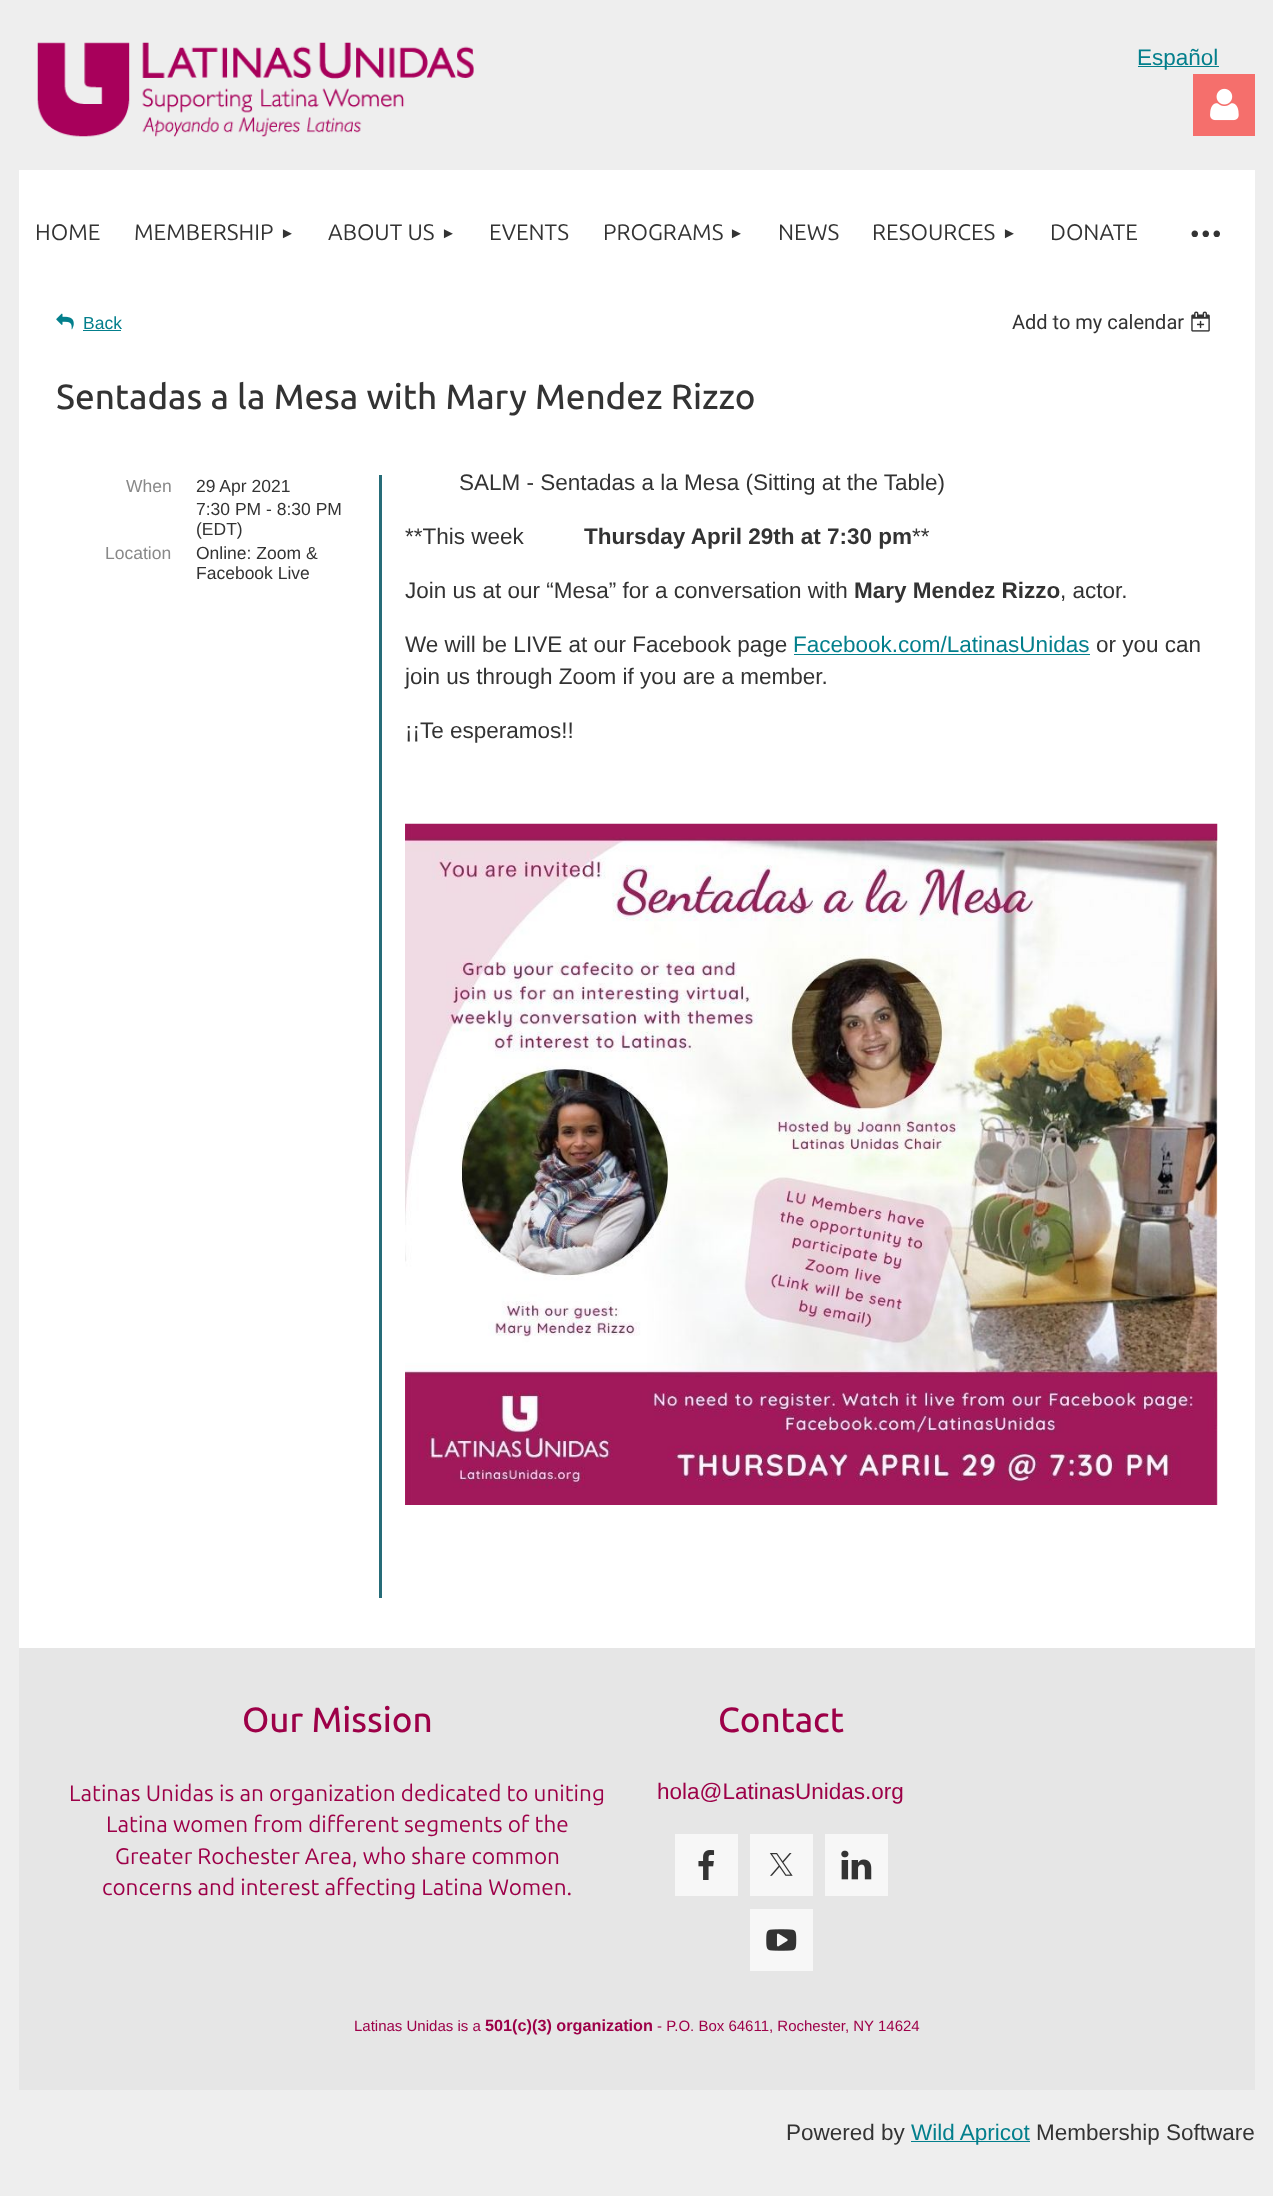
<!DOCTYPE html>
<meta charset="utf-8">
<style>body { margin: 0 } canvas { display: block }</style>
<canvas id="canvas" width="1273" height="2196"></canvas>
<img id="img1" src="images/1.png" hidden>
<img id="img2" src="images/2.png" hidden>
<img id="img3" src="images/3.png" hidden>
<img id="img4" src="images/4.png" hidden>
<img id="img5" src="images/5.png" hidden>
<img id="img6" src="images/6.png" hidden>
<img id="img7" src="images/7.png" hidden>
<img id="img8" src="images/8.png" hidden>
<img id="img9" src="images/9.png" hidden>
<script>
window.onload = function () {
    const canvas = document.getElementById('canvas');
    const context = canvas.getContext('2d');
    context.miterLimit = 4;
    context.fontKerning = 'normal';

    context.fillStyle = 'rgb(238, 238, 238)';
    context.fillRect(0, 0, 1273, 2196);
    context.drawImage(document.getElementById('img1'), 37, 42, 437, 95);
    context.fillStyle = 'rgb(3, 127, 140)';
    context.fillRect(1138, 66, 81, 1);
    context.fillStyle = 'rgb(245, 111, 108)';
    context.fillRect(1193, 74, 62, 62);
    context.drawImage(document.getElementById('img2'), 1210, 88, 29, 33);
    context.fillStyle = 'rgb(255, 255, 255)';
    context.fillRect(19, 170, 1236, 1478);
    context.drawImage(document.getElementById('img3'), 56, 313, 18, 17);
    context.fillStyle = 'rgb(3, 127, 140)';
    context.fillRect(83, 330, 38, 1);
    context.drawImage(document.getElementById('img4'), 1191, 311, 19, 21);
    context.fillStyle = 'rgb(38, 108, 120)';
    context.fillRect(379, 475, 3, 1123);
    context.fillStyle = 'rgb(3, 127, 140)';
    context.fillRect(794, 654, 296, 1);
    context.drawImage(document.getElementById('img5'), 405, 823, 813, 682);
    context.fillStyle = 'rgb(230, 230, 230)';
    context.fillRect(19, 1648, 1236, 442);
    context.fillStyle = 'rgb(247, 247, 247)';
    context.fillRect(675, 1834, 63, 62);
    context.drawImage(document.getElementById('img6'), 698, 1850, 17, 30);
    context.fillRect(750, 1834, 63, 62);
    context.drawImage(document.getElementById('img7'), 769, 1853, 24, 23);
    context.fillRect(825, 1834, 63, 62);
    context.drawImage(document.getElementById('img8'), 841, 1850, 31, 30);
    context.fillRect(750, 1909, 63, 62);
    context.drawImage(document.getElementById('img9'), 766, 1929, 31, 22);
    context.fillStyle = 'rgb(3, 127, 140)';
    context.fillRect(911, 2141, 119, 1);
    context.font = '22.5px Liberation Sans';
    context.fillText('Español', 1137, 65);
    context.font = '22.5px Ubuntu';
    context.fillStyle = 'rgb(51, 51, 51)';
    context.fillText('HOME', 35, 240);
    context.fillText('MEMBERSHIP', 134, 240);
    context.font = '15px Liberation Sans';
    context.fillText('►', 280, 238);
    context.font = '22.5px Ubuntu';
    context.fillText('ABOUT US', 328, 240);
    context.font = '15px Liberation Sans';
    context.fillText('►', 441, 238);
    context.font = '22.5px Ubuntu';
    context.fillText('EVENTS', 489, 240);
    context.fillText('PROGRAMS', 603, 240);
    context.font = '15px Liberation Sans';
    context.fillText('►', 729, 238);
    context.font = '22.5px Ubuntu';
    context.fillText('NEWS', 778, 240);
    context.fillText('RESOURCES', 872, 240);
    context.font = '15px Liberation Sans';
    context.fillText('►', 1002, 238);
    context.font = '22.5px Ubuntu';
    context.fillText('DONATE', 1050, 240);
    context.letterSpacing = '-2.5px';
    context.font = '55px Ubuntu';
    context.fillText('···', 1188, 250);
    context.letterSpacing = '0px';
    context.font = '17.5px Liberation Sans';
    context.fillStyle = 'rgb(3, 127, 140)';
    context.fillText('Back', 83, 329);
    context.font = '20px Roboto';
    context.fillStyle = 'rgb(51, 51, 51)';
    context.fillText('Add to my calendar', 1012, 329);
    context.font = '500 35px Ubuntu';
    context.fillText('Sentadas a la Mesa with Mary Mendez Rizzo', 56, 409);
    context.font = '17.5px Liberation Sans';
    context.fillStyle = 'rgb(137, 137, 137)';
    context.fillText('When', 126, 492);
    context.fillStyle = 'rgb(51, 51, 51)';
    context.fillText('29 Apr 2021', 196, 492);
    context.fillText('7:30 PM - 8:30 PM', 196, 515);
    context.fillText('(EDT)', 196, 535);
    context.fillStyle = 'rgb(137, 137, 137)';
    context.fillText('Location', 105, 559);
    context.fillStyle = 'rgb(51, 51, 51)';
    context.fillText('Online: Zoom &', 196, 559);
    context.fillText('Facebook Live', 196, 579);
    context.font = '22.5px Liberation Sans';
    context.fillText('SALM - Sentadas a la Mesa (Sitting at the Table)', 459, 490);
    context.fillText('**This week', 405, 544);
    context.font = 'bold 22.5px Liberation Sans';
    context.fillText('Thursday April 29th at 7:30 pm', 584, 544);
    context.font = '22.5px Liberation Sans';
    context.fillText('**', 912, 544);
    context.fillText('Join us at our “Mesa” for a conversation with', 405, 598);
    context.font = 'bold 22.5px Liberation Sans';
    context.fillText('Mary Mendez Rizzo', 854, 598);
    context.font = '22.5px Liberation Sans';
    context.fillText(', actor.', 1060, 598);
    context.fillText('We will be LIVE at our Facebook page', 405, 652);
    context.fillStyle = 'rgb(3, 127, 140)';
    context.fillText('Facebook.com/LatinasUnidas', 793, 652);
    context.fillStyle = 'rgb(51, 51, 51)';
    context.fillText('or you can', 1096, 652);
    context.fillText('join us through Zoom if you are a member.', 405, 684);
    context.fillText('¡¡Te esperamos!!', 405, 738);
    context.font = '500 35px Ubuntu';
    context.fillStyle = 'rgb(157, 0, 72)';
    context.fillText('Our Mission', 242, 1732);
    context.font = '22.5px Ubuntu';
    context.fillText('Latinas Unidas is an organization dedicated to uniting', 69, 1801);
    context.fillText('Latina women from different segments of the', 106, 1832);
    context.fillText('Greater Rochester Area, who share common', 115, 1864);
    context.fillText('concerns and interest affecting Latina Women.', 102, 1895);
    context.font = '500 35px Ubuntu';
    context.fillText('Contact', 718, 1732);
    context.font = '22.5px Liberation Sans';
    context.fillText('hola@LatinasUnidas.org', 657, 1799);
    context.font = '15px Liberation Sans';
    context.fillText('Latinas Unidas is a', 354, 2031);
    context.font = 'bold 16.25px Liberation Sans';
    context.fillText('501(c)(3) organization', 485, 2031);
    context.font = '15px Liberation Sans';
    context.fillText('- P.O. Box 64611, Rochester, NY 14624', 657, 2031);
    context.font = '22.5px Liberation Sans';
    context.fillStyle = 'rgb(51, 51, 51)';
    context.fillText('Powered by', 786, 2140);
    context.fillStyle = 'rgb(3, 127, 140)';
    context.fillText('Wild Apricot', 911, 2140);
    context.fillStyle = 'rgb(51, 51, 51)';
    context.fillText('Membership Software', 1036, 2140);
};
</script>
